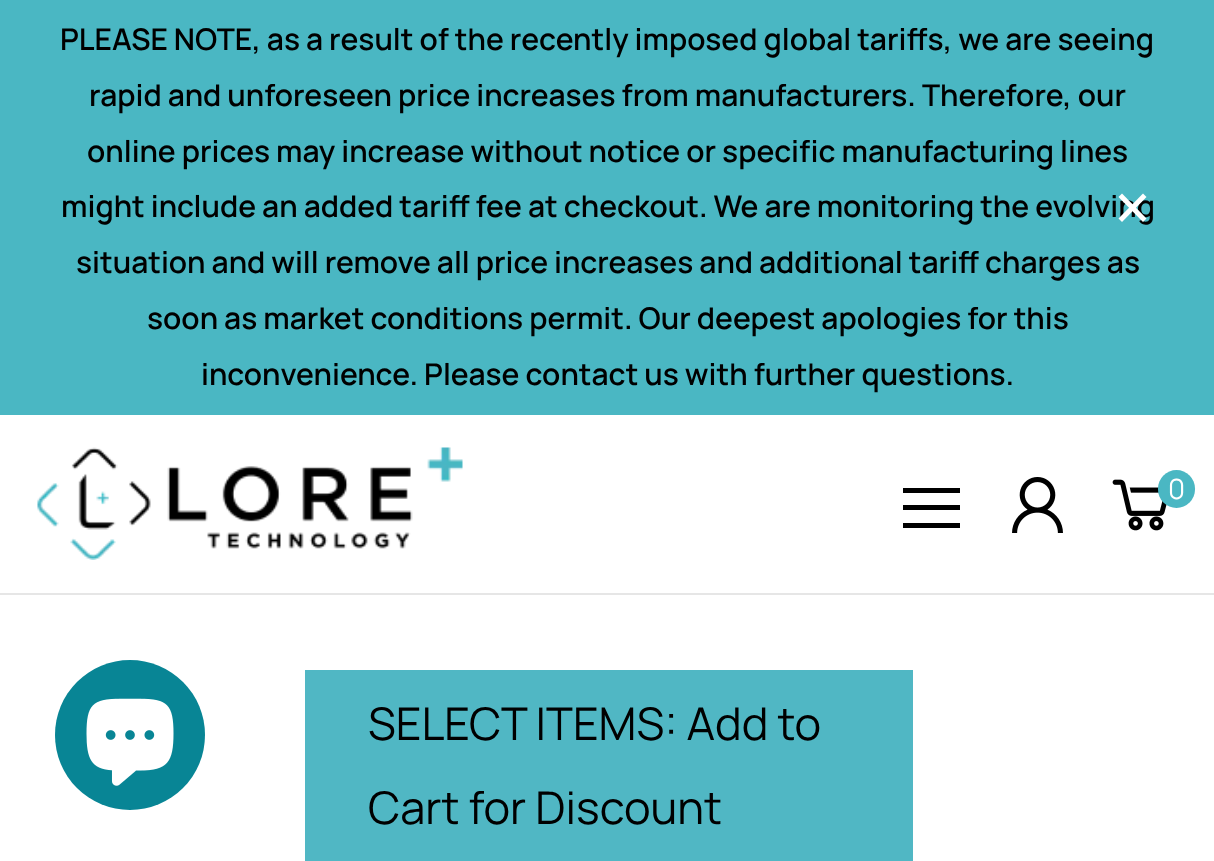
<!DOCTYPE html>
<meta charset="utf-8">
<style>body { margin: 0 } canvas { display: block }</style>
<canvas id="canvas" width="1214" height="861"></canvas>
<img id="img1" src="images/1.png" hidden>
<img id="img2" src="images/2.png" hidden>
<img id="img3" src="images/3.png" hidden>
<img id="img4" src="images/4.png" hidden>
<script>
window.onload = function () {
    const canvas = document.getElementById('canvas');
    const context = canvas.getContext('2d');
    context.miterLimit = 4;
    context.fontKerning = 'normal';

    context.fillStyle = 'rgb(255, 255, 255)';
    context.fillRect(0, 0, 1214, 861);
    context.fillStyle = 'rgb(230, 230, 230)';
    context.fillRect(0, 593, 1214, 2);
    context.fillStyle = 'rgb(74, 183, 195)';
    context.fillRect(0, 0, 1214, 415);
    context.drawImage(document.getElementById('img1'), 37, 447, 426, 113);
    context.fillStyle = 'rgb(0, 0, 0)';
    context.fillRect(903, 488, 57, 5);
    context.fillRect(903, 505, 57, 5);
    context.fillRect(903, 523, 57, 5);
    context.drawImage(document.getElementById('img2'), 1012, 477, 51, 56);
    context.drawImage(document.getElementById('img3'), 1112, 479, 55, 52);
    context.fillStyle = 'rgb(74, 183, 195)';
    context.beginPath();
    context.roundRect(1158, 470, 37, 38, 18.5);
    context.fill();
    context.fillStyle = 'rgb(8, 133, 149)';
    context.beginPath();
    context.arc(130, 735, 75, 0, 2 * Math.PI);
    context.fill();
    context.drawImage(document.getElementById('img4'), 86, 698, 88, 88);
    context.fillStyle = 'rgb(80, 183, 196)';
    context.fillRect(305, 670, 608, 191);
    context.font = '600 30px Manrope';
    context.fillStyle = 'rgb(0, 0, 0)';
    context.fillText('PLEASE NOTE, as a result of the recently imposed global tariffs, we are seeing', 60, 50);
    context.fillText('rapid and unforeseen price increases from manufacturers. Therefore, our', 89, 106);
    context.fillText('online prices may increase without notice or specific manufacturing lines', 87, 162);
    context.fillText('might include an added tariff fee at checkout. We are monitoring the evolving', 61, 217);
    context.fillText('situation and will remove all price increases and additional tariff charges as', 76, 273);
    context.fillText('soon as market conditions permit. Our deepest apologies for this', 147, 329);
    context.fillText('inconvenience. Please contact us with further questions.', 201, 385);
    context.fillStyle = 'rgb(255, 255, 255)';
    context.beginPath();
    context.moveTo(1122, 193.5);
    context.lineTo(1146.5, 218.5);
    context.lineTo(1143, 222);
    context.lineTo(1118.5, 197);
    context.closePath();
    context.fill();
    context.beginPath();
    context.moveTo(1118.5, 218.5);
    context.lineTo(1143, 193.5);
    context.lineTo(1146.5, 197);
    context.lineTo(1122, 222);
    context.closePath();
    context.fill();
    context.font = '28px Manrope';
    context.fillText('0', 1168, 499);
    context.font = '45px Manrope';
    context.fillStyle = 'rgb(0, 0, 0)';
    context.fillText('SELECT ITEMS: Add to', 368, 740);
    context.fillText('Cart for Discount', 368, 824);
};
</script>
